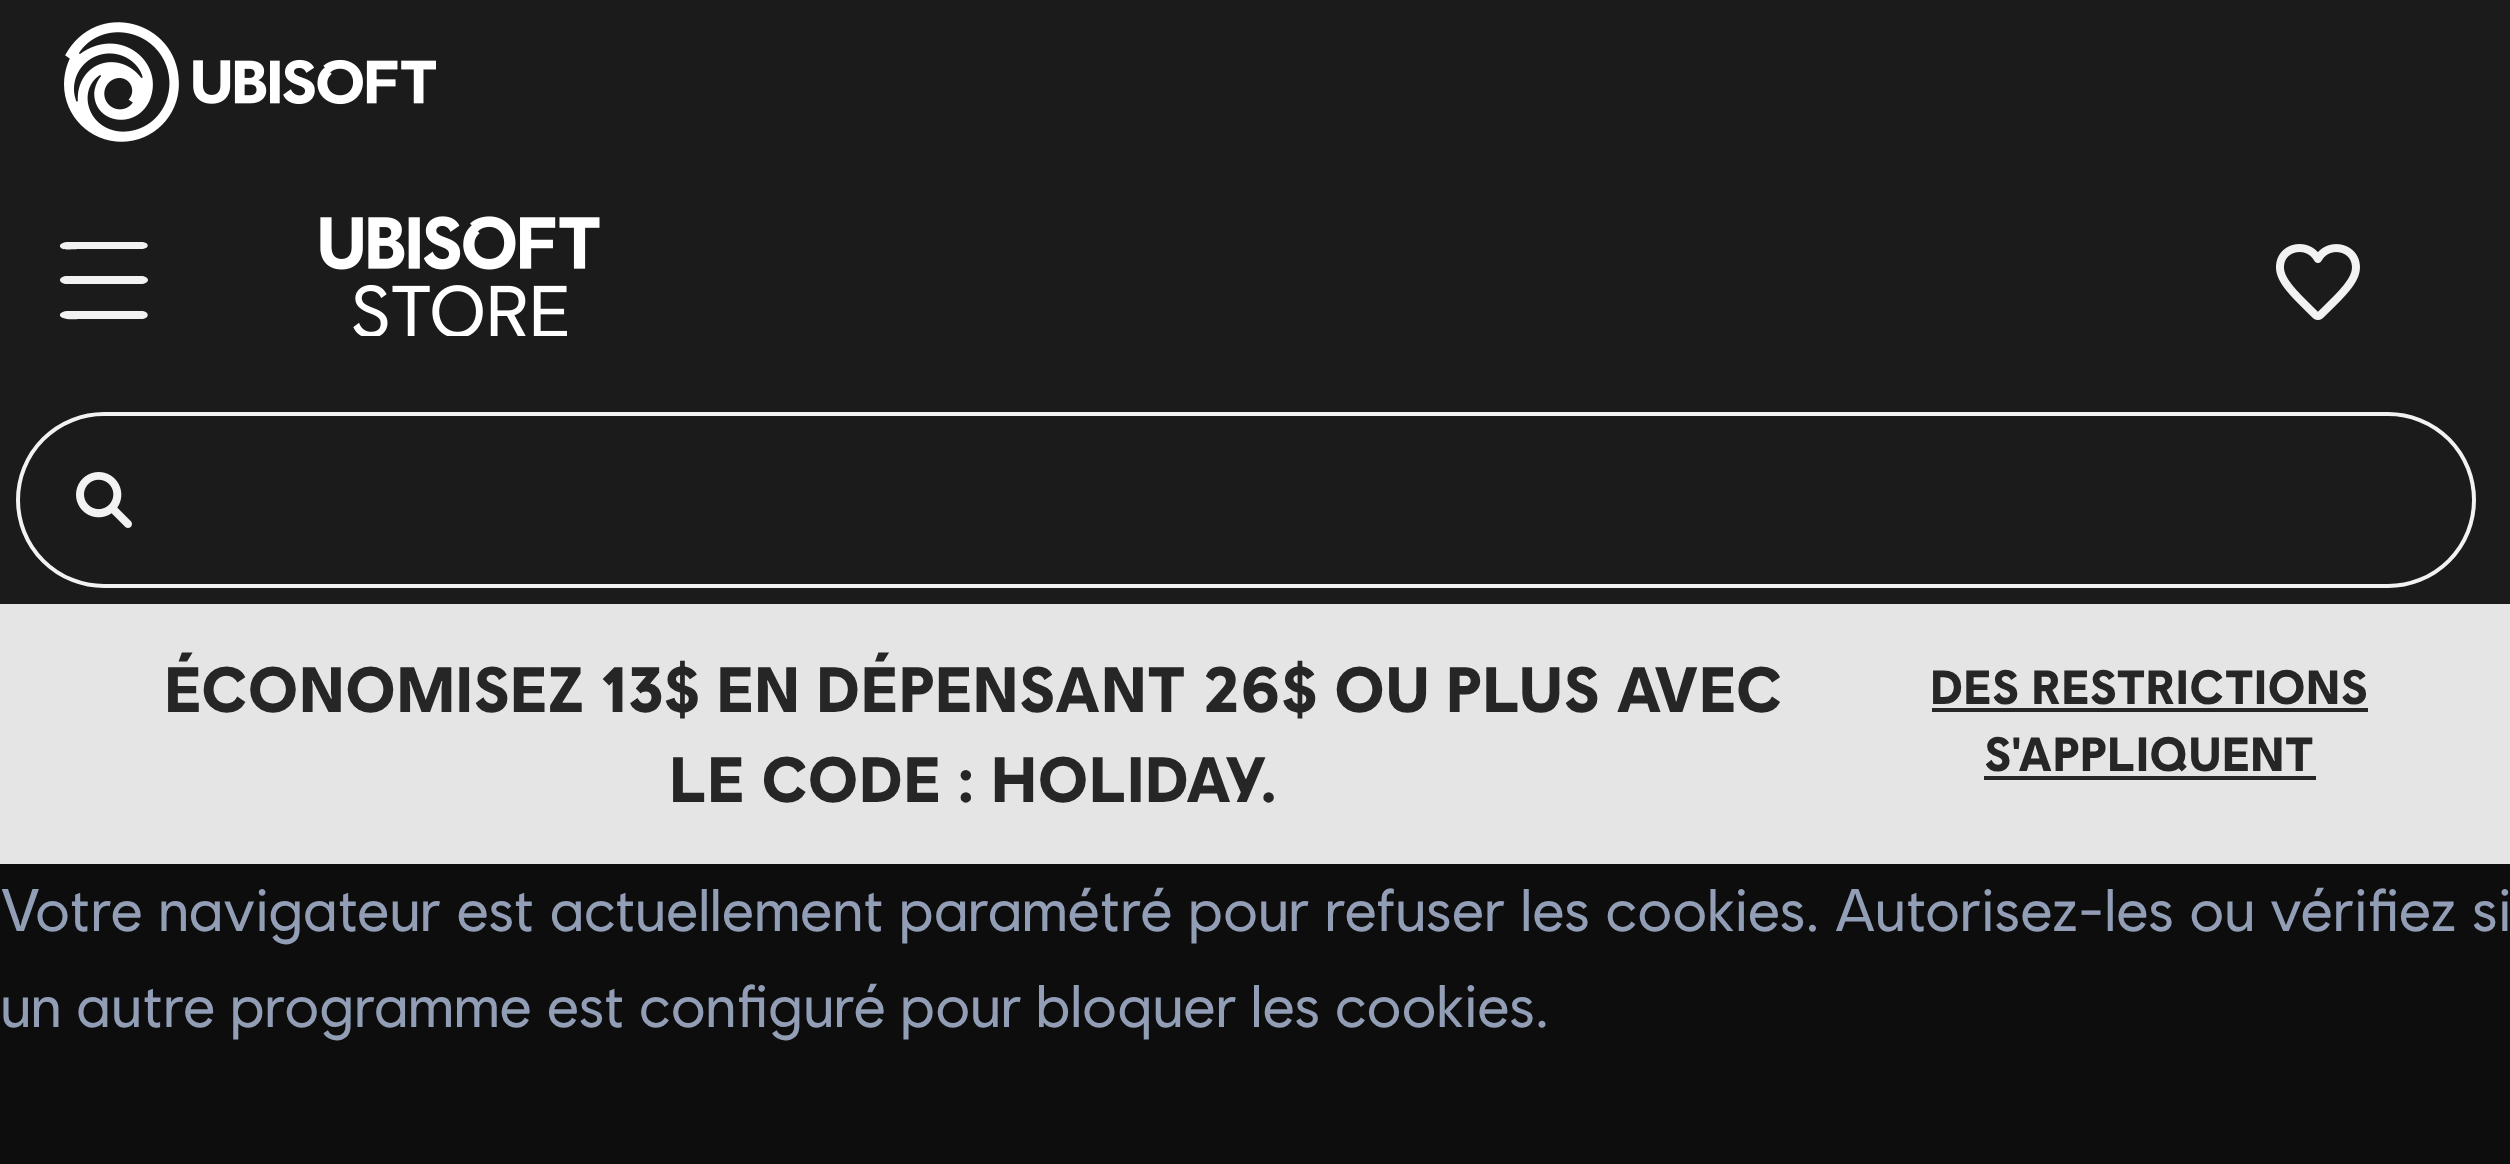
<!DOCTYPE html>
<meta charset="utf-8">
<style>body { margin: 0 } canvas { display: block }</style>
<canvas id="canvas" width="2510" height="1164"></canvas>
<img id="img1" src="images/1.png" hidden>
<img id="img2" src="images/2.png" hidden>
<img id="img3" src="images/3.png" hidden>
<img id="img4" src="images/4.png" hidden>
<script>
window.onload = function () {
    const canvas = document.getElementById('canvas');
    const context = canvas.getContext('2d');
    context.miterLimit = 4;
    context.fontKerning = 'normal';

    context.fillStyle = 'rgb(13, 13, 13)';
    context.fillRect(0, 0, 2510, 1164);
    context.fillStyle = 'rgb(27, 27, 27)';
    context.fillRect(0, 0, 2510, 604);
    context.drawImage(document.getElementById('img1'), 64, 22, 372, 120);
    context.save();
    context.beginPath();
    context.rect(60, 236, 88, 88);
    context.clip();
    context.fillStyle = 'rgb(242, 242, 242)';
    context.beginPath();
    context.moveTo(67, 242);
    context.bezierCurveTo(62, 242, 56, 246, 63, 249);
    context.bezierCurveTo(67, 250, 77, 249, 79, 249);
    context.lineTo(141, 249);
    context.bezierCurveTo(150, 249, 150, 242, 141, 242);
    context.closePath();
    context.moveTo(67, 276);
    context.bezierCurveTo(63, 276, 60, 278, 60, 280);
    context.bezierCurveTo(60, 282, 63, 284, 67, 284);
    context.lineTo(141, 284);
    context.bezierCurveTo(145, 284, 148, 282, 148, 280);
    context.bezierCurveTo(148, 278, 145, 276, 141, 276);
    context.closePath();
    context.moveTo(67, 311);
    context.bezierCurveTo(62, 311, 56, 315, 63, 318);
    context.bezierCurveTo(67, 320, 77, 319, 79, 319);
    context.lineTo(141, 319);
    context.bezierCurveTo(150, 319, 150, 311, 141, 311);
    context.closePath();
    context.fill();
    context.restore();
    context.drawImage(document.getElementById('img2'), 320, 216, 280, 120);
    context.drawImage(document.getElementById('img3'), 2276, 244, 84, 76);
    context.beginPath();
    context.roundRect(18, 414, 2456, 172, 86);
    context.strokeStyle = 'rgb(242, 242, 242)';
    context.lineWidth = 4;
    context.stroke();
    context.drawImage(document.getElementById('img4'), 76, 472, 56, 56);
    context.fillStyle = 'rgb(229, 229, 229)';
    context.fillRect(0, 604, 2510, 260);
    context.fillStyle = 'rgb(38, 38, 38)';
    context.fillRect(1932, 708, 436, 4);
    context.fillRect(1984, 776, 332, 4);
    context.font = 'bold 64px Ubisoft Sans';
    context.fillText('ÉCONOMISEZ 13$ EN DÉPENSANT 26$ OU PLUS AVEC', 164, 712);
    context.fillText('LE CODE : HOLIDAY.', 669, 802);
    context.font = 'bold 48px Ubisoft Sans';
    context.fillText('DES RESTRICTIONS', 1930, 704);
    context.fillText('S\'APPLIQUENT', 1984, 771);
    context.wordSpacing = '1px';
    context.font = '60px Ubisoft Sans';
    context.fillStyle = 'rgb(146, 157, 182)';
    context.fillText('Votre navigateur est actuellement paramétré pour refuser les cookies. Autorisez-les ou vérifiez si', 0, 931);
    context.wordSpacing = '0px';
    context.fillText('un autre programme est configuré pour bloquer les cookies.', 0, 1027);
};
</script>
